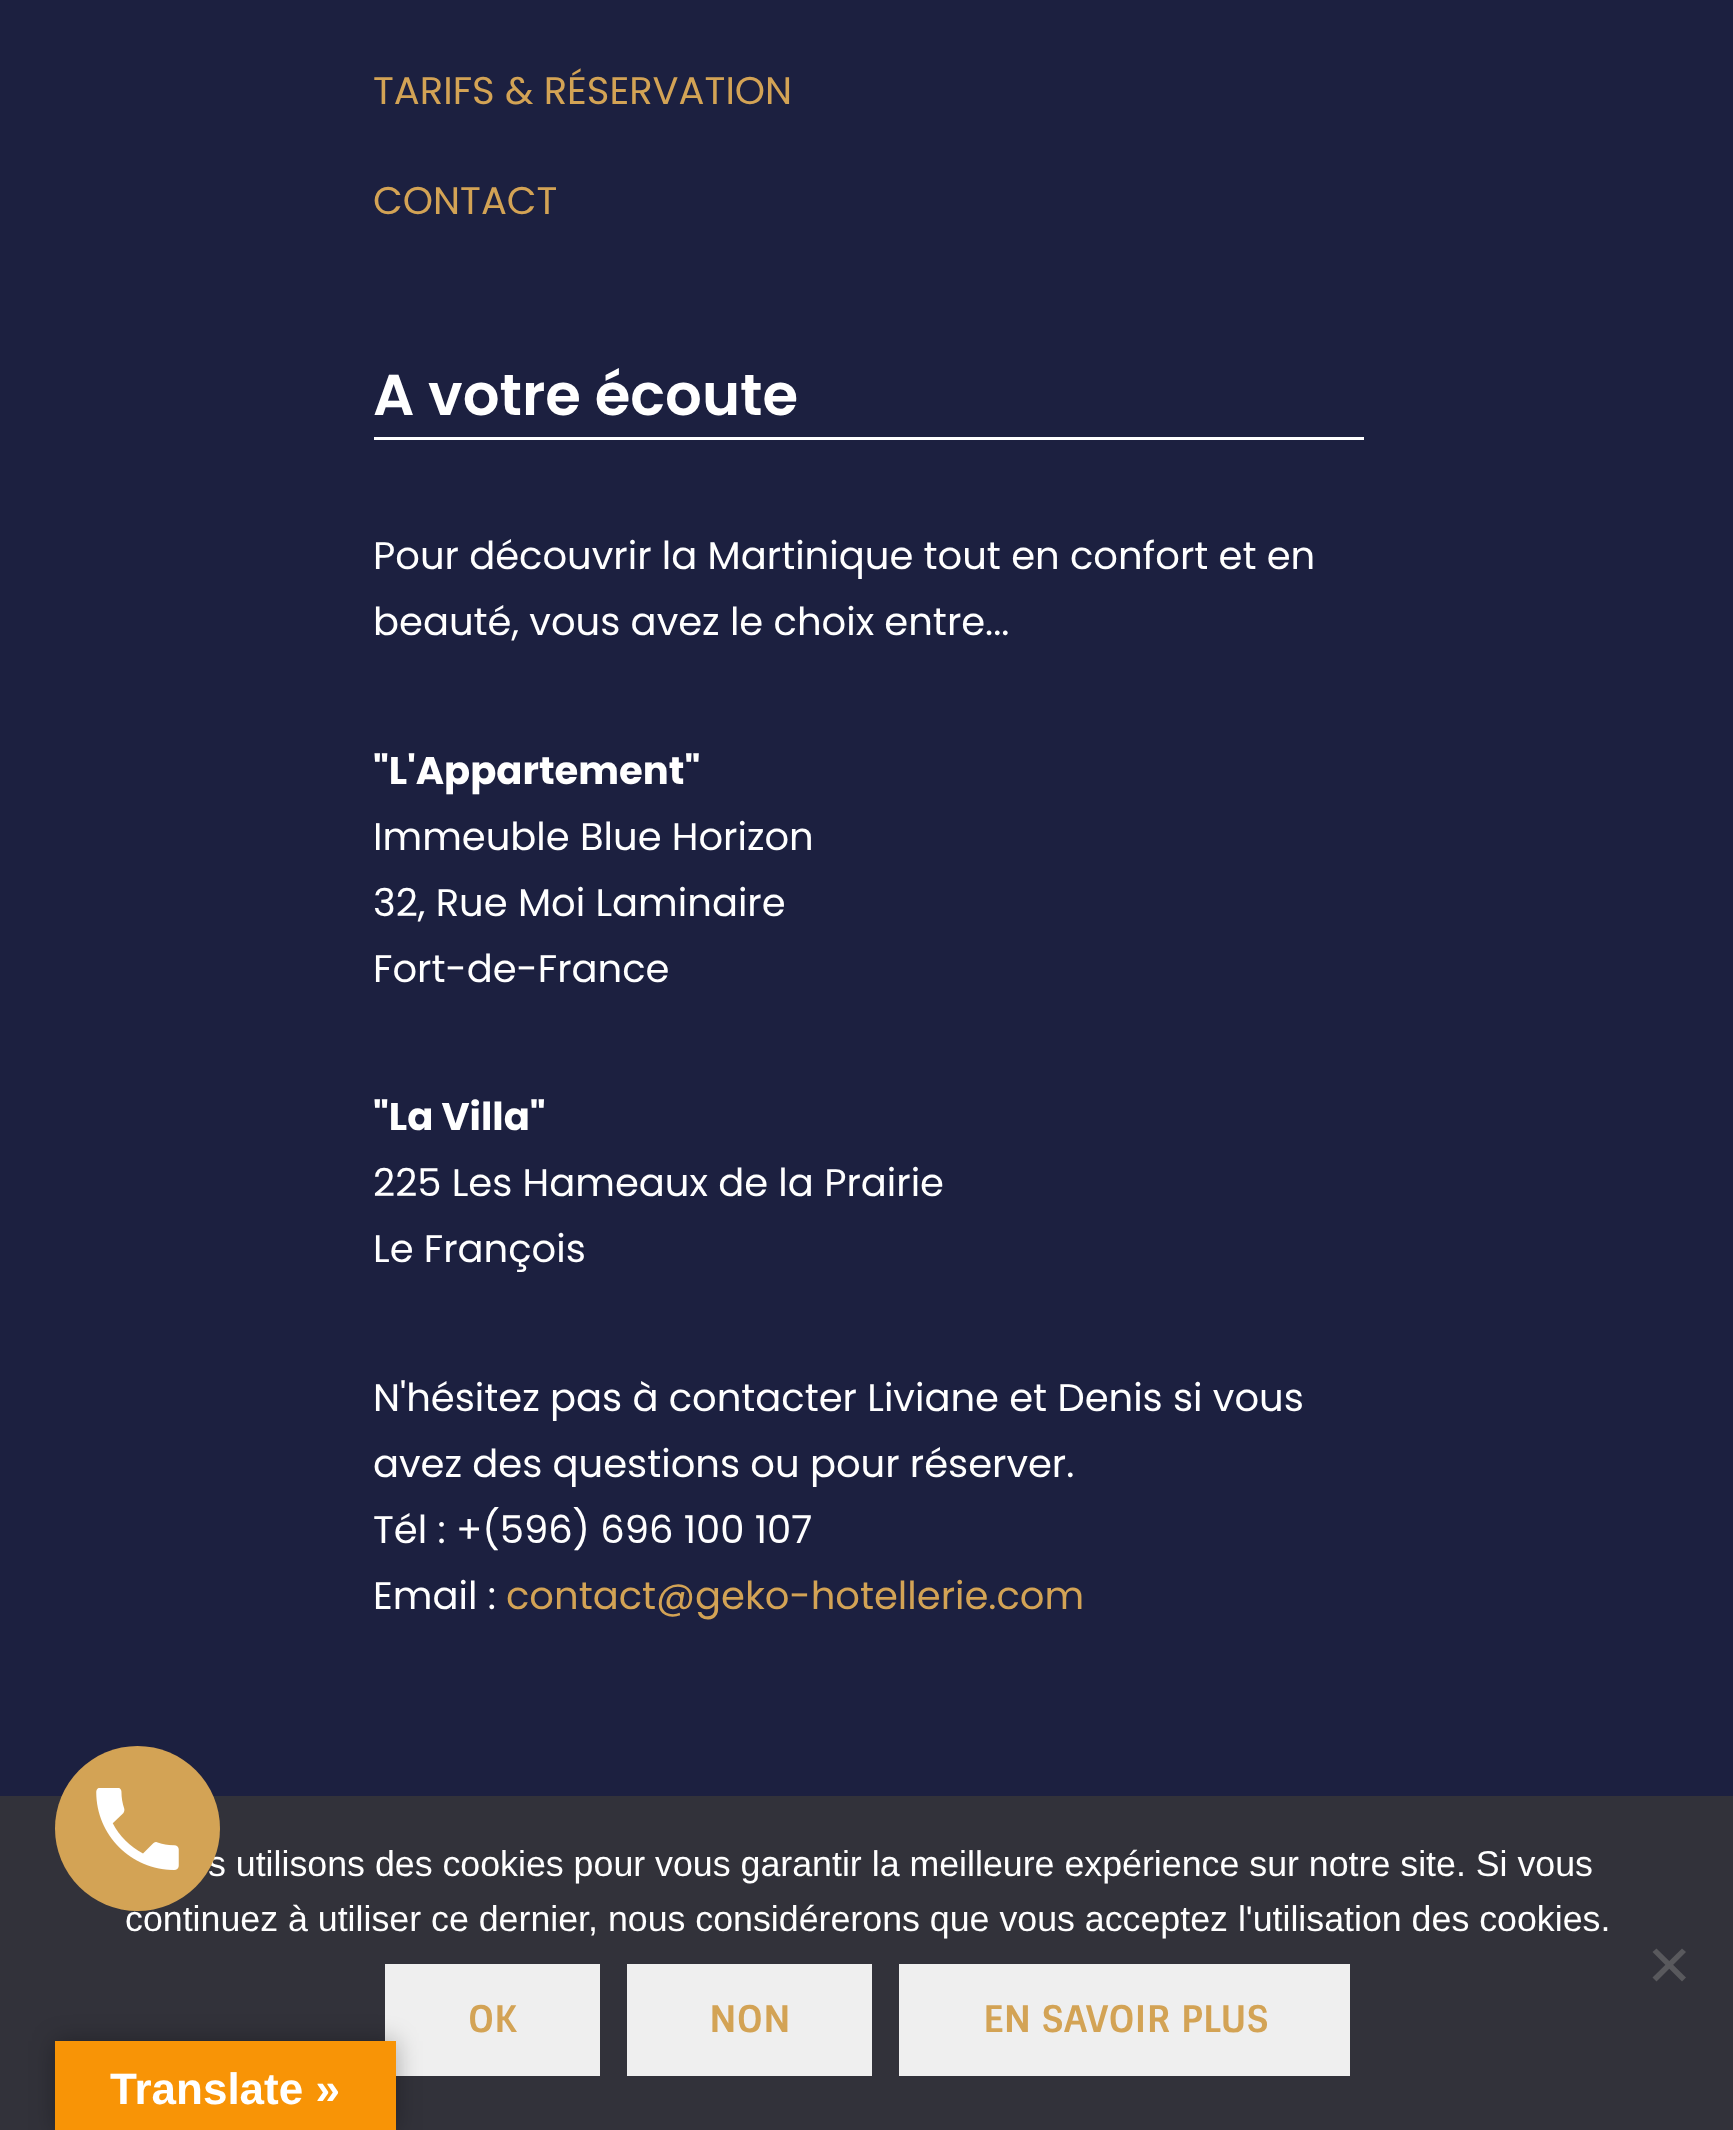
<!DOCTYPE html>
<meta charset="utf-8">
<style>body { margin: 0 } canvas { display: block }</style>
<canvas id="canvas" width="1733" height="2130"></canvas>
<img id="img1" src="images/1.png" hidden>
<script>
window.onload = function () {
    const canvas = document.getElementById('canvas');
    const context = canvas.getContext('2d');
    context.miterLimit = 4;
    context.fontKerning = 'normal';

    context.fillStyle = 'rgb(28, 32, 64)';
    context.fillRect(0, 0, 1733, 2130);
    context.fillStyle = 'rgb(255, 255, 255)';
    context.fillRect(374, 437, 990, 3);
    context.fillStyle = 'rgb(50, 50, 58)';
    context.fillRect(0, 1796, 1733, 334);
    context.fillStyle = 'rgb(89, 89, 93)';
    context.beginPath();
    context.moveTo(1682, 1948.5);
    context.lineTo(1686, 1952);
    context.lineTo(1656.5, 1981.5);
    context.lineTo(1652.5, 1977.5);
    context.closePath();
    context.fill();
    context.beginPath();
    context.moveTo(1652.5, 1952);
    context.lineTo(1656.5, 1948.5);
    context.lineTo(1686, 1977.5);
    context.lineTo(1682, 1981.5);
    context.closePath();
    context.fill();
    context.fillStyle = 'rgb(239, 239, 239)';
    context.fillRect(385, 1964, 215, 112);
    context.fillRect(627, 1964, 245, 112);
    context.fillRect(899, 1964, 451, 112);
    context.fillStyle = 'rgba(0, 0, 0, 0.3)';
    context.filter = 'blur(12.5px)';
    context.beginPath();
    context.rect(55, 2041, 341, 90);
    context.fill();
    context.filter = 'none';
    context.fillStyle = 'rgb(248, 148, 6)';
    context.fillRect(55, 2041, 341, 89);
    context.font = '38.5px Poppins';
    context.fillStyle = 'rgb(211, 163, 85)';
    context.fillText('TARIFS & RÉSERVATION', 373, 104);
    context.fillText('CONTACT', 373, 214);
    context.font = '600 57.75px Poppins';
    context.fillStyle = 'rgb(255, 255, 255)';
    context.fillText('A votre écoute', 373, 415);
    context.font = '38.5px Poppins';
    context.fillText('Pour découvrir la Martinique tout en confort et en', 373, 569);
    context.fillText('beauté, vous avez le choix entre...', 373, 635);
    context.font = 'bold 38.5px Poppins';
    context.fillText('"L\'Appartement"', 373, 784);
    context.font = '38.5px Poppins';
    context.fillText('Immeuble Blue Horizon', 373, 850);
    context.fillText('32, Rue Moi Laminaire', 373, 916);
    context.fillText('Fort-de-France', 373, 982);
    context.font = 'bold 38.5px Poppins';
    context.fillText('"La Villa"', 373, 1130);
    context.font = '38.5px Poppins';
    context.fillText('225 Les Hameaux de la Prairie', 373, 1196);
    context.fillText('Le François', 373, 1262);
    context.fillText('N\'hésitez pas à contacter Liviane et Denis si vous', 373, 1411);
    context.fillText('avez des questions ou pour réserver.', 373, 1477);
    context.fillText('Tél : +(596) 696 100 107', 373, 1543);
    context.fillText('Email :', 373, 1609);
    context.fillStyle = 'rgb(211, 163, 85)';
    context.fillText('contact@geko-hotellerie.com', 506, 1609);
    context.font = '35.75px Liberation Sans';
    context.fillStyle = 'rgb(255, 255, 255)';
    context.fillText('s utilisons des cookies pour vous garantir la meilleure expérience sur notre site. Si vous', 208, 1876);
    context.fillText('continuez à utiliser ce dernier, nous considérerons que vous acceptez l\'utilisation des cookies.', 125, 1931);
    context.fillStyle = 'rgb(211, 163, 85)';
    context.beginPath();
    context.arc(137.5, 1828.5, 82.5, 0, 2 * Math.PI);
    context.fill();
    context.drawImage(document.getElementById('img1'), 96, 1788, 83, 82);
    context.font = 'bold 36.75px Sintony';
    context.fillText('OK', 468, 2032);
    context.fillText('NON', 709, 2032);
    context.fillText('EN SAVOIR PLUS', 983, 2032);
    context.font = 'bold 44px Liberation Sans';
    context.fillStyle = 'rgb(255, 255, 255)';
    context.fillText('Translate »', 110, 2104);
};
</script>
